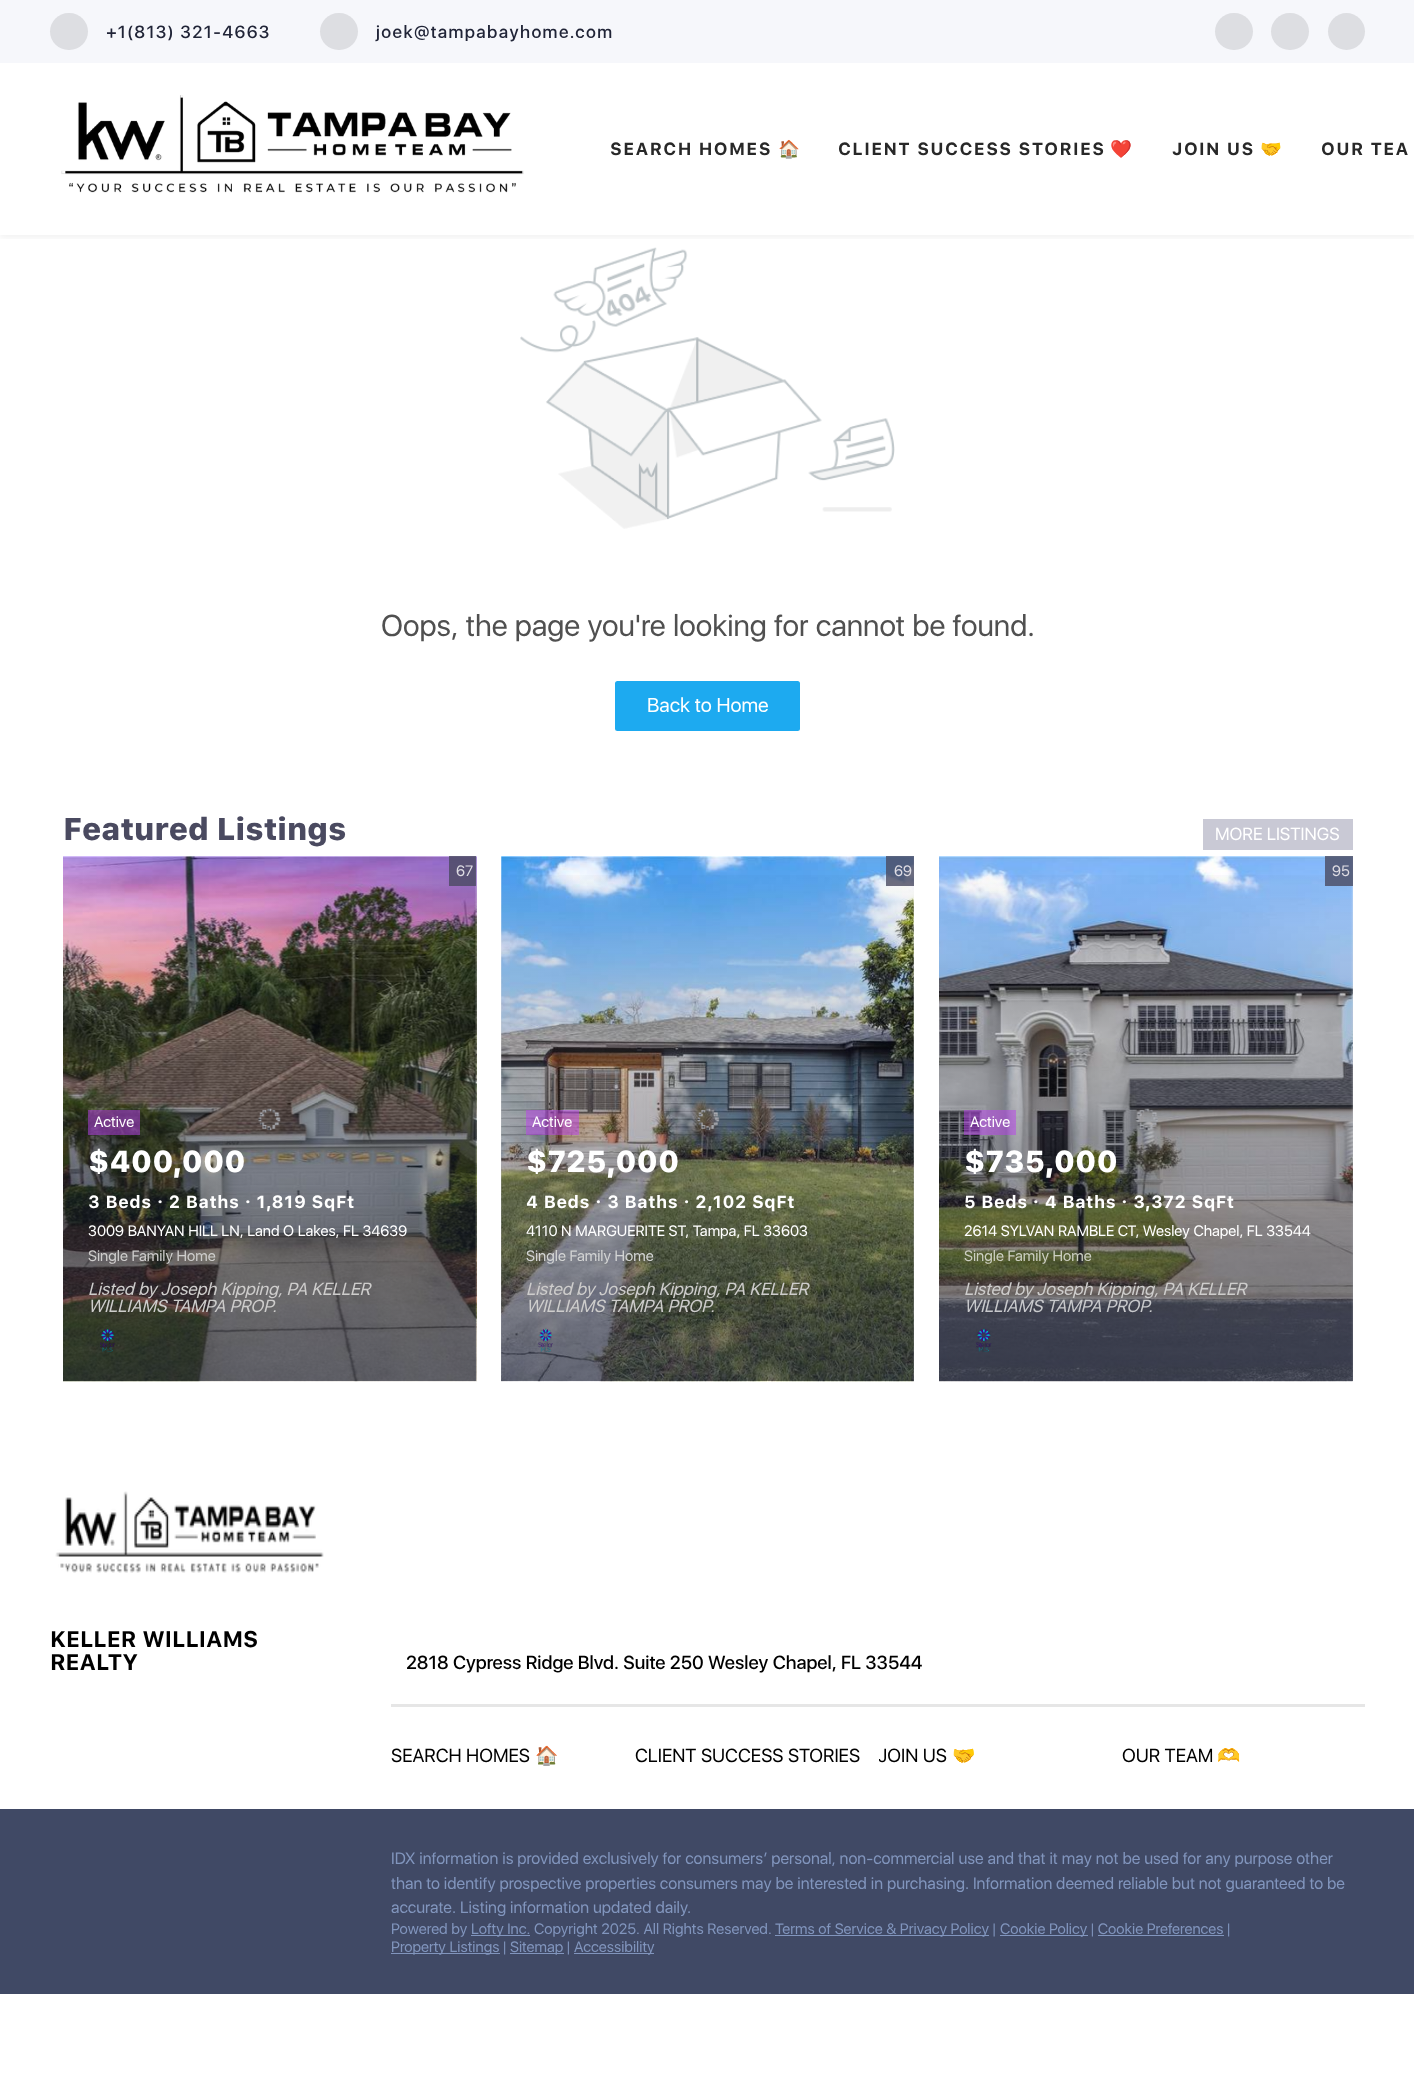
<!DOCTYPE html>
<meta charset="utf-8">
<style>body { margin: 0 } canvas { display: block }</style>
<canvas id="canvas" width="1414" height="2099"></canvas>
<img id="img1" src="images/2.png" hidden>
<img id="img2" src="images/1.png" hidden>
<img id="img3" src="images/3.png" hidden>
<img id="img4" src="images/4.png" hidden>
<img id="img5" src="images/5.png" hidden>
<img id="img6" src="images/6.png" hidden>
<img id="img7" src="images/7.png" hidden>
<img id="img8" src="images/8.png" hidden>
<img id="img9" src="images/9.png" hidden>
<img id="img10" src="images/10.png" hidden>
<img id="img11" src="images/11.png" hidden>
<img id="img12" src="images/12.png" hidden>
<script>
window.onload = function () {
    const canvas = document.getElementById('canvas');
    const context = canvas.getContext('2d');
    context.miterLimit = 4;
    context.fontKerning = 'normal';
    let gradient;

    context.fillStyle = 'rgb(255, 255, 255)';
    context.fillRect(0, 0, 1414, 2099);
    context.drawImage(document.getElementById('img1'), 520, 247, 375, 282);
    context.save();
    context.beginPath();
    context.rect(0, 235, 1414, 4);
    context.clip();
    context.fillStyle = 'rgba(0, 0, 0, 0.05)';
    context.filter = 'blur(3px)';
    context.beginPath();
    context.rect(0, 3, 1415, 235);
    context.fill();
    context.filter = 'none';
    context.restore();
    context.fillStyle = 'rgb(246, 247, 251)';
    context.fillRect(0, 0, 1414, 63);
    context.fillStyle = 'rgb(221, 222, 226)';
    context.beginPath();
    context.roundRect(50, 13, 38, 37, 18.5);
    context.fill();
    context.beginPath();
    context.roundRect(320, 13, 38, 37, 18.5);
    context.fill();
    context.beginPath();
    context.roundRect(1215, 13, 38, 37, 18.5);
    context.fill();
    context.beginPath();
    context.roundRect(1271, 13, 38, 37, 18.5);
    context.fill();
    context.beginPath();
    context.arc(1346.5, 31.5, 18.5, 0, 2 * Math.PI);
    context.fill();
    context.drawImage(document.getElementById('img2'), 61, 95, 463, 98);
    context.fillStyle = 'rgb(29, 170, 240)';
    context.beginPath();
    context.roundRect(615, 681, 185, 50, 2.5);
    context.fill();
    context.fillStyle = 'rgb(201, 201, 213)';
    context.fillRect(1203, 819, 150, 31);
    context.drawImage(document.getElementById('img3'), 63, 856, 414, 526);
    context.drawImage(document.getElementById('img4'), 258, 1108, 23, 23);
    gradient = context.createLinearGradient(269, 856, 269, 1381);
    gradient.addColorStop(0, 'rgba(36, 42, 61, 0)');
    gradient.addColorStop(1, 'rgba(36, 42, 61, 0.6)');
    gradient.addColorStop(1, 'rgb(36, 42, 61)');
    context.fillStyle = gradient;
    context.fillRect(63, 875, 413, 506);
    context.fillStyle = 'rgba(74, 74, 96, 0.8)';
    context.fillRect(449, 856, 27, 30);
    context.fillStyle = 'rgba(187, 64, 239, 0.5)';
    context.fillRect(88, 1110, 52, 25);
    context.drawImage(document.getElementById('img5'), 100, 1328, 15, 24);
    context.drawImage(document.getElementById('img6'), 501, 856, 413, 526);
    context.drawImage(document.getElementById('img7'), 696, 1108, 24, 23);
    gradient = context.createLinearGradient(708, 856, 708, 1381);
    gradient.addColorStop(0, 'rgba(36, 42, 61, 0)');
    gradient.addColorStop(1, 'rgba(36, 42, 61, 0.6)');
    gradient.addColorStop(1, 'rgb(36, 42, 61)');
    context.fillStyle = gradient;
    context.fillRect(501, 875, 413, 506);
    context.fillStyle = 'rgba(74, 74, 96, 0.8)';
    context.fillRect(886, 856, 28, 30);
    context.fillStyle = 'rgba(187, 64, 239, 0.5)';
    context.fillRect(526, 1110, 53, 25);
    context.drawImage(document.getElementById('img8'), 538, 1328, 15, 24);
    context.drawImage(document.getElementById('img9'), 939, 856, 414, 526);
    context.drawImage(document.getElementById('img10'), 1135, 1108, 23, 23);
    gradient = context.createLinearGradient(1146, 856, 1146, 1381);
    gradient.addColorStop(0, 'rgba(36, 42, 61, 0)');
    gradient.addColorStop(1, 'rgba(36, 42, 61, 0.6)');
    gradient.addColorStop(1, 'rgb(36, 42, 61)');
    context.fillStyle = gradient;
    context.fillRect(939, 875, 414, 506);
    context.fillStyle = 'rgba(74, 74, 96, 0.8)';
    context.fillRect(1325, 856, 28, 30);
    context.fillStyle = 'rgba(187, 64, 239, 0.5)';
    context.fillRect(964, 1110, 52, 25);
    context.drawImage(document.getElementById('img11'), 976, 1329, 16, 23);
    context.drawImage(document.getElementById('img12'), 55, 1491, 269, 82);
    context.fillStyle = 'rgb(230, 230, 230)';
    context.fillRect(391, 1704, 974, 3);
    context.fillStyle = 'rgb(64, 73, 101)';
    context.fillRect(0, 1809, 1414, 185);
    context.fillStyle = 'rgb(129, 149, 189)';
    context.fillRect(471, 1935, 59, 1);
    context.fillRect(775, 1935, 214, 1);
    context.fillRect(1000, 1935, 88, 1);
    context.fillRect(1098, 1935, 126, 1);
    context.fillRect(391, 1953, 109, 1);
    context.fillRect(510, 1953, 54, 1);
    context.fillRect(574, 1953, 80, 1);
    context.letterSpacing = '1.4px';
    context.font = '500 17.5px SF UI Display';
    context.fillStyle = 'rgb(32, 36, 55)';
    context.fillText('+1(813) 321-4663', 106, 38);
    context.fillText('joek@tampabayhome.com', 376, 38);
    context.font = 'bold 17.5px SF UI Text';
    context.fillStyle = 'rgb(40, 40, 40)';
    context.fillText('SEARCH HOMES', 610, 155);
    context.font = '17.5px Noto Color Emoji';
    context.fillText('🏠', 778, 155);
    context.font = 'bold 17.5px SF UI Text';
    context.fillText('CLIENT SUCCESS STORIES', 838, 155);
    context.font = '17.5px Noto Color Emoji';
    context.fillText('❤️', 1110, 155);
    context.font = 'bold 17.5px SF UI Text';
    context.fillText('JOIN US', 1172, 155);
    context.font = '17.5px Noto Color Emoji';
    context.fillText('🤝', 1260, 155);
    context.font = 'bold 17.5px SF UI Text';
    context.fillText('OUR TEA', 1321, 155);
    context.letterSpacing = '0px';
    context.font = '30px SF UI Display';
    context.fillStyle = 'rgb(80, 80, 80)';
    context.fillText('Oops, the page you\'re looking for cannot be found.', 381, 636);
    context.font = '20px SF UI Display';
    context.fillStyle = 'rgb(255, 255, 255)';
    context.fillText('Back to Home', 647, 712);
    context.font = '900 31.25px SF UI Text';
    context.fillStyle = 'rgb(74, 74, 96)';
    context.fillText('Featured Listings', 63, 840);
    context.font = '17.5px SF UI Display';
    context.fillStyle = 'rgb(255, 255, 255)';
    context.fillText('MORE LISTINGS', 1215, 840);
    context.font = '15px SF UI Display';
    context.fillStyle = 'rgb(222, 220, 227)';
    context.fillText('67', 456, 876);
    context.fillStyle = 'rgb(255, 255, 255)';
    context.fillText('Active', 94, 1127);
    context.font = '900 30px SF UI Text';
    context.fillText('$400,000', 88, 1172);
    context.letterSpacing = '0.6px';
    context.font = 'bold 17.5px SF UI Text';
    context.fillText('3 Beds · 2 Baths · 1,819 SqFt', 88, 1208);
    context.letterSpacing = '0px';
    context.font = '15px SF UI Display';
    context.fillText('3009 BANYAN HILL LN, Land O Lakes, FL 34639', 88, 1236);
    context.fillStyle = 'rgb(206, 205, 204)';
    context.fillText('Single Family Home', 88, 1261);
    context.font = 'italic 17.5px SF UI Display';
    context.fillText('Listed by Joseph Kipping, PA KELLER', 88, 1295);
    context.fillText('WILLIAMS TAMPA PROP.', 88, 1312);
    context.font = '15px SF UI Display';
    context.fillStyle = 'rgb(222, 220, 227)';
    context.fillText('69', 894, 876);
    context.fillStyle = 'rgb(255, 255, 255)';
    context.fillText('Active', 532, 1127);
    context.font = '900 30px SF UI Text';
    context.fillText('$725,000', 526, 1172);
    context.letterSpacing = '0.6px';
    context.font = 'bold 17.5px SF UI Text';
    context.fillText('4 Beds · 3 Baths · 2,102 SqFt', 526, 1208);
    context.letterSpacing = '0px';
    context.font = '15px SF UI Display';
    context.fillText('4110 N MARGUERITE ST, Tampa, FL 33603', 526, 1236);
    context.fillStyle = 'rgb(211, 212, 212)';
    context.fillText('Single Family Home', 526, 1261);
    context.font = 'italic 17.5px SF UI Display';
    context.fillStyle = 'rgb(206, 205, 204)';
    context.fillText('Listed by Joseph Kipping, PA KELLER', 526, 1295);
    context.fillText('WILLIAMS TAMPA PROP.', 526, 1312);
    context.font = '15px SF UI Display';
    context.fillStyle = 'rgb(222, 220, 227)';
    context.fillText('95', 1332, 876);
    context.fillStyle = 'rgb(255, 255, 255)';
    context.fillText('Active', 970, 1127);
    context.font = '900 30px SF UI Text';
    context.fillText('$735,000', 964, 1172);
    context.letterSpacing = '0.6px';
    context.font = 'bold 17.5px SF UI Text';
    context.fillText('5 Beds · 4 Baths · 3,372 SqFt', 964, 1208);
    context.letterSpacing = '0px';
    context.font = '15px SF UI Display';
    context.fillText('2614 SYLVAN RAMBLE CT, Wesley Chapel, FL 33544', 964, 1236);
    context.fillStyle = 'rgb(204, 206, 194)';
    context.fillText('Single Family Home', 964, 1261);
    context.font = 'italic 17.5px SF UI Display';
    context.fillStyle = 'rgb(206, 205, 204)';
    context.fillText('Listed by Joseph Kipping, PA KELLER', 964, 1295);
    context.fillStyle = 'rgb(200, 201, 204)';
    context.fillText('WILLIAMS TAMPA PROP.', 964, 1312);
    context.font = 'bold 22.5px SF UI Text';
    context.fillStyle = 'rgb(0, 0, 0)';
    context.fillText('KELLER WILLIAMS', 50, 1647);
    context.fillText('REALTY', 50, 1670);
    context.font = '500 18.75px SF UI Display';
    context.fillText('2818 Cypress Ridge Blvd. Suite 250 Wesley Chapel, FL 33544', 406, 1669);
    context.font = '18.75px SF UI Display';
    context.fillText('SEARCH HOMES', 391, 1762);
    context.font = '18.75px Noto Color Emoji';
    context.fillText('🏠', 535, 1762);
    context.font = '18.75px SF UI Display';
    context.fillText('CLIENT SUCCESS STORIES', 635, 1762);
    context.save();
    context.beginPath();
    context.rect(879, 1744, 96, 22);
    context.clip();
    context.fillText('JOIN US', 878, 1762);
    context.restore();
    context.font = '18.75px Noto Color Emoji';
    context.fillText('🤝', 952, 1762);
    context.font = '18.75px SF UI Display';
    context.fillText('OUR TEAM', 1122, 1762);
    context.font = '18.75px Noto Color Emoji';
    context.fillText('🫶', 1217, 1762);
    context.font = '16.25px SF UI Display';
    context.fillStyle = 'rgb(129, 149, 189)';
    context.fillText('IDX information is provided exclusively for consumers’ personal, non-commercial use and that it may not be used for any purpose other', 391, 1864);
    context.fillText('than to identify prospective properties consumers may be interested in purchasing. Information deemed reliable but not guaranteed to be', 391, 1889);
    context.fillText('accurate. Listing information updated daily.', 391, 1913);
    context.font = '15px SF UI Display';
    context.fillText('Powered by', 391, 1934);
    context.fillText('Lofty Inc. Copyright 2025. All Rights Reserved.', 471, 1934);
    context.fillText('Terms of Service & Privacy Policy |', 775, 1934);
    context.fillText('Cookie Policy | Cookie Preferences |', 1000, 1934);
    context.fillText('Property Listings |', 391, 1952);
    context.fillText('Sitemap |', 510, 1952);
    context.fillText('Accessibility', 574, 1952);
};
</script>
